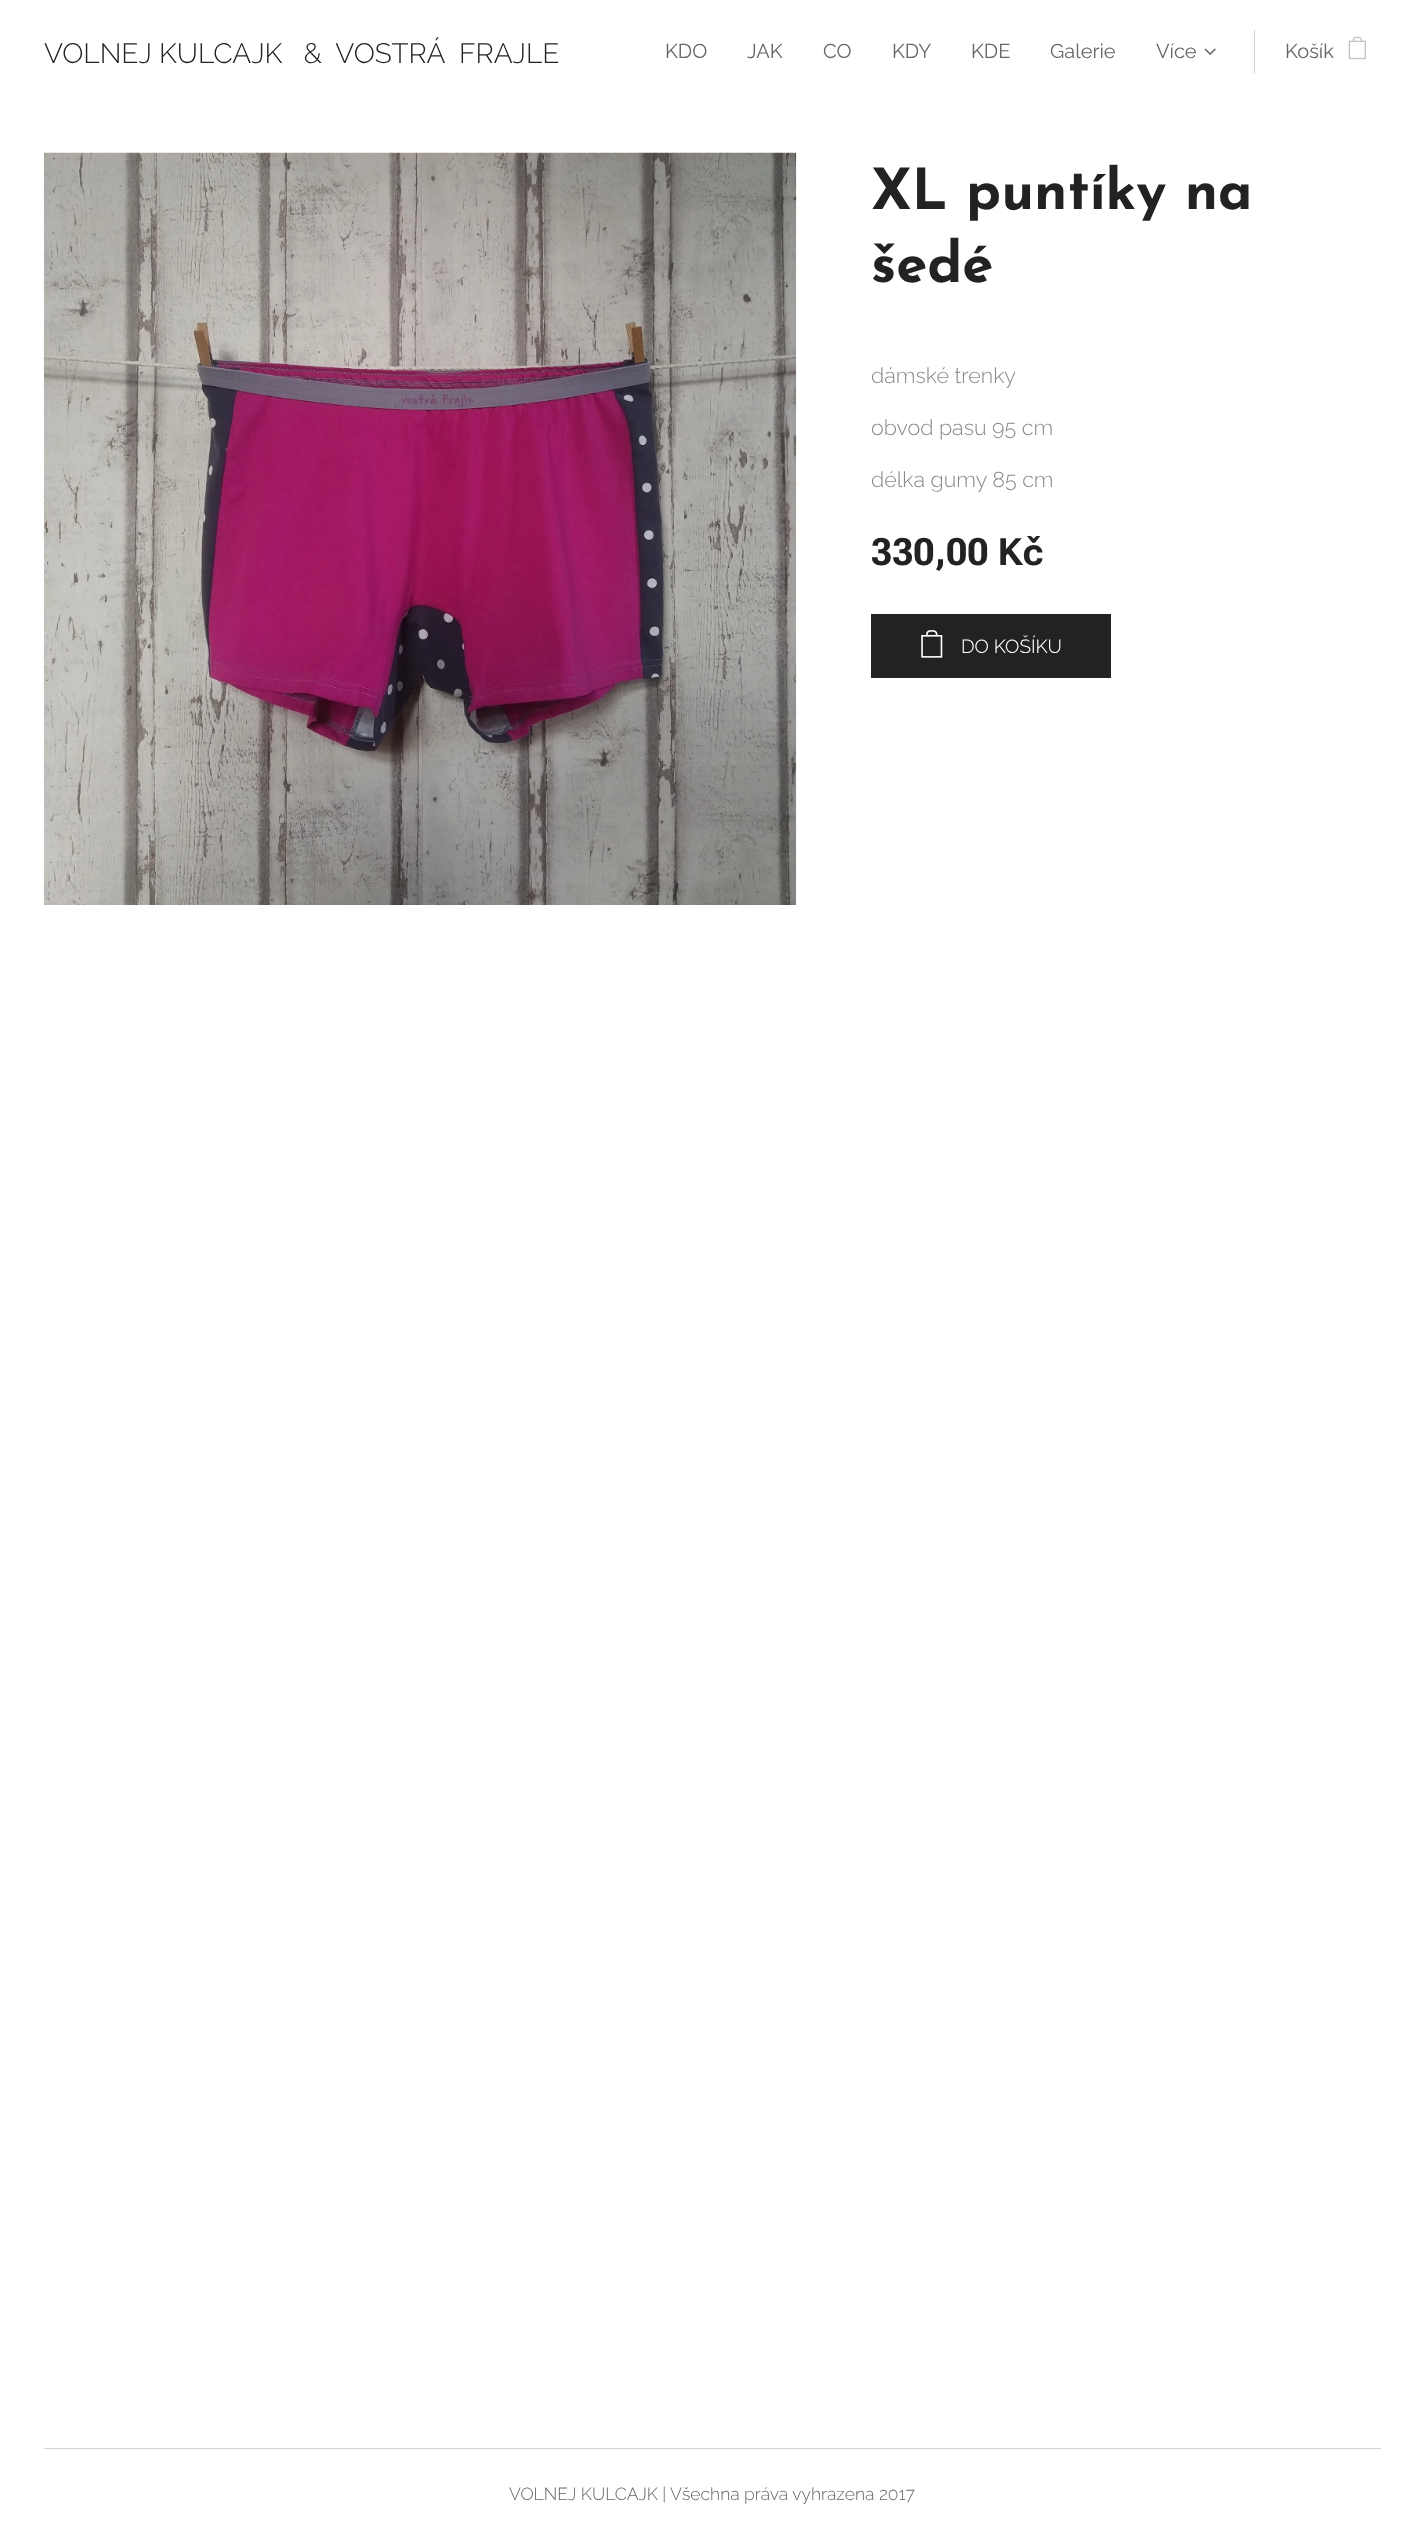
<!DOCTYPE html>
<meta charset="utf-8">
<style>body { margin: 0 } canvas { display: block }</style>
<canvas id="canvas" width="1424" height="2539"></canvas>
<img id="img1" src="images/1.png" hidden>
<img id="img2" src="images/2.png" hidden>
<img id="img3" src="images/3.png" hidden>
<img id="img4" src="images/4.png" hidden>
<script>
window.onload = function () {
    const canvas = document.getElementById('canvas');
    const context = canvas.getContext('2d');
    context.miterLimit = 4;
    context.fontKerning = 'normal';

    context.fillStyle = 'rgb(255, 255, 255)';
    context.fillRect(0, 0, 1424, 2539);
    context.drawImage(document.getElementById('img1'), 1204, 48, 12, 7);
    context.fillStyle = 'rgb(209, 209, 209)';
    context.fillRect(1254, 30, 1, 43);
    context.drawImage(document.getElementById('img2'), 1348, 36, 18, 24);
    context.drawImage(document.getElementById('img3'), 43, 152, 754, 753);
    context.fillStyle = 'rgb(34, 34, 34)';
    context.fillRect(871, 614, 240, 64);
    context.drawImage(document.getElementById('img4'), 921, 630, 22, 28);
    context.fillStyle = 'rgb(212, 212, 212)';
    context.fillRect(44, 2448, 1337, 1);
    context.font = '300 28px Raleway';
    context.fillStyle = 'rgb(34, 34, 34)';
    context.fillText('VOLNEJ KULCAJK   &  VOSTRÁ  FRAJLE', 44, 63);
    context.font = '20px Raleway';
    context.fillStyle = 'rgb(102, 102, 102)';
    context.fillText('KDO', 665, 58);
    context.fillText('JAK', 747, 58);
    context.fillText('CO', 823, 58);
    context.fillText('KDY', 892, 58);
    context.fillText('KDE', 971, 58);
    context.fillText('Galerie', 1050, 58);
    context.fillText('Více', 1156, 58);
    context.fillText('Košík', 1285, 58);
    context.font = 'bold 56.25px Josefin Sans';
    context.fillStyle = 'rgb(34, 34, 34)';
    context.fillText('XL puntíky na', 871, 209);
    context.fillText('šedé', 871, 282);
    context.font = '300 21.5px Raleway';
    context.fillStyle = 'rgb(136, 136, 136)';
    context.fillText('dámské trenky', 871, 383);
    context.fillText('obvod pasu 95 cm', 871, 435);
    context.fillText('délka gumy 85 cm', 871, 487);
    context.font = 'bold 37.5px Roboto Flex';
    context.fillStyle = 'rgb(34, 34, 34)';
    context.fillText('330,00 Kč', 871, 565);
    context.font = '300 19px "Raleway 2"';
    context.fillStyle = 'rgb(255, 255, 255)';
    context.fillText('DO KOŠÍKU', 961, 653);
    context.font = '300 17.5px Raleway';
    context.fillStyle = 'rgb(102, 102, 102)';
    context.fillText('VOLNEJ KULCAJK | Všechna práva vyhrazena 2017', 509, 2500);
};
</script>
